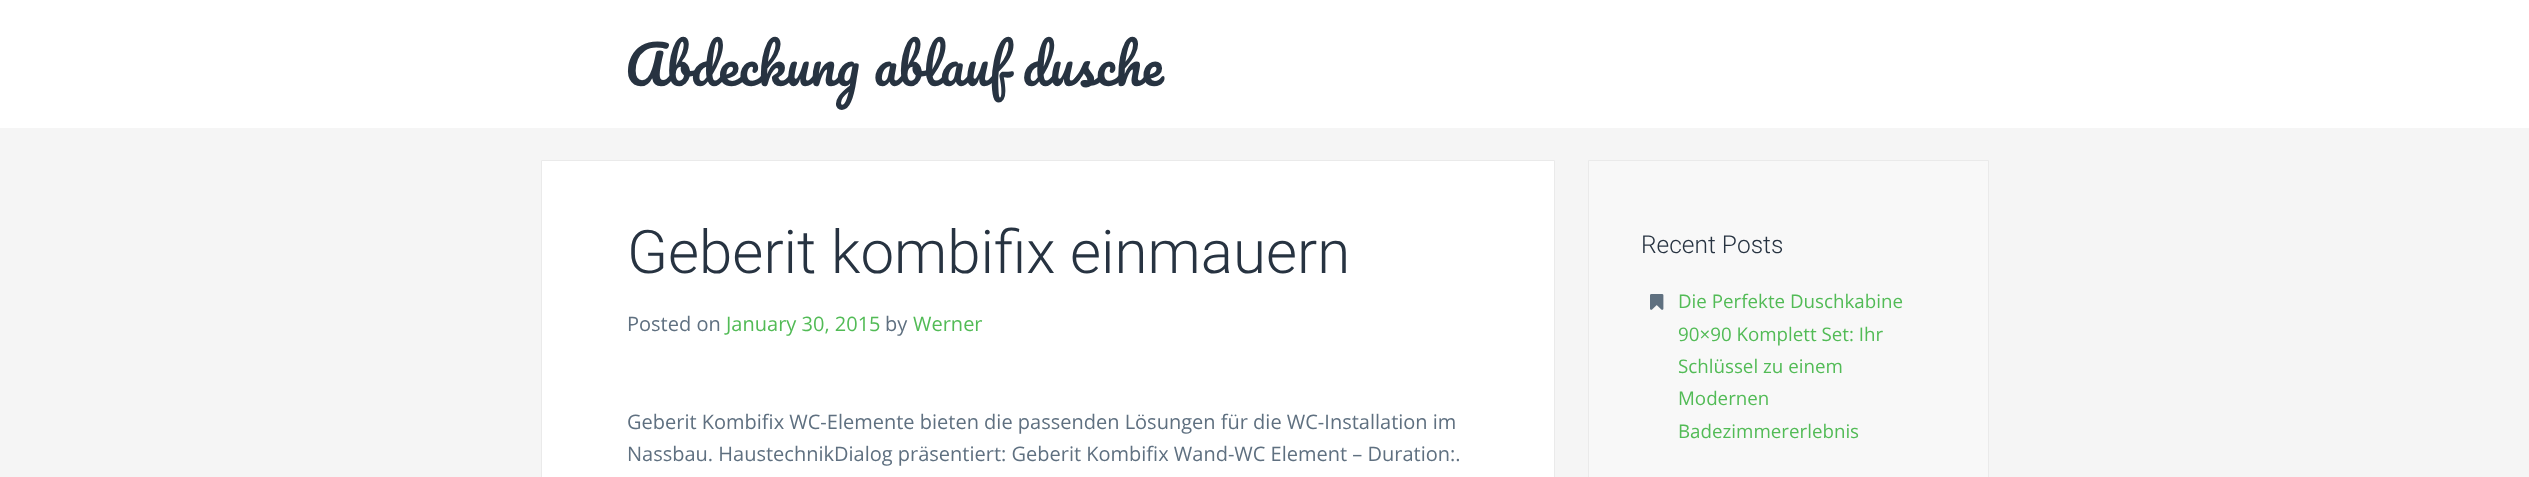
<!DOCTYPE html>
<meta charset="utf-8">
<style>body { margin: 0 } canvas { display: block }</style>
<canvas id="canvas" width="2529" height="477"></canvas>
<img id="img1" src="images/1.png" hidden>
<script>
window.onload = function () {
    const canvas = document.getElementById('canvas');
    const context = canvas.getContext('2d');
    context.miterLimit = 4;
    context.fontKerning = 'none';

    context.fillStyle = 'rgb(245, 245, 245)';
    context.fillRect(0, 0, 2529, 477);
    context.fillStyle = 'rgb(255, 255, 255)';
    context.fillRect(0, 0, 2529, 128);
    context.beginPath();
    context.rect(541.5, 160.5, 1013, 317);
    context.fill();
    context.strokeStyle = 'rgb(234, 234, 234)';
    context.stroke();
    context.fillStyle = 'rgb(248, 248, 248)';
    context.beginPath();
    context.rect(1588.5, 160.5, 400, 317);
    context.fill();
    context.stroke();
    context.drawImage(document.getElementById('img1'), 1650, 294, 14, 16);
    context.font = '52.5px Pacifico';
    context.fillStyle = 'rgb(39, 51, 65)';
    context.fillText('Abdeckung ablauf dusche', 625, 86);
    context.font = '300 60px Roboto';
    context.fillText('Geberit kombifix einmauern', 627, 273);
    context.font = '20px Open Sans';
    context.fillStyle = 'rgb(95, 112, 128)';
    context.fillText('Posted on', 627, 331);
    context.fillStyle = 'rgb(82, 187, 86)';
    context.fillText('January 30, 2015', 726, 331);
    context.fillStyle = 'rgb(95, 112, 128)';
    context.fillText('by', 885, 331);
    context.fillStyle = 'rgb(82, 187, 86)';
    context.fillText('Werner', 913, 331);
    context.fillStyle = 'rgb(95, 112, 128)';
    context.fillText('Geberit Kombifix WC-Elemente bieten die passenden Lösungen für die WC-Installation im', 627, 429);
    context.fillText('Nassbau. HaustechnikDialog präsentiert: Geberit Kombifix Wand-WC Element – Duration:.', 627, 461);
    context.font = '300 24.5px Roboto';
    context.fillStyle = 'rgb(39, 51, 65)';
    context.fillText('Recent Posts', 1641, 253);
    context.font = '18.75px Open Sans';
    context.fillStyle = 'rgb(82, 187, 86)';
    context.fillText('Die Perfekte Duschkabine', 1678, 308);
    context.fillText('90×90 Komplett Set: Ihr', 1678, 341);
    context.fillText('Schlüssel zu einem', 1678, 373);
    context.fillText('Modernen', 1678, 405);
    context.fillText('Badezimmererlebnis', 1678, 438);
};
</script>
